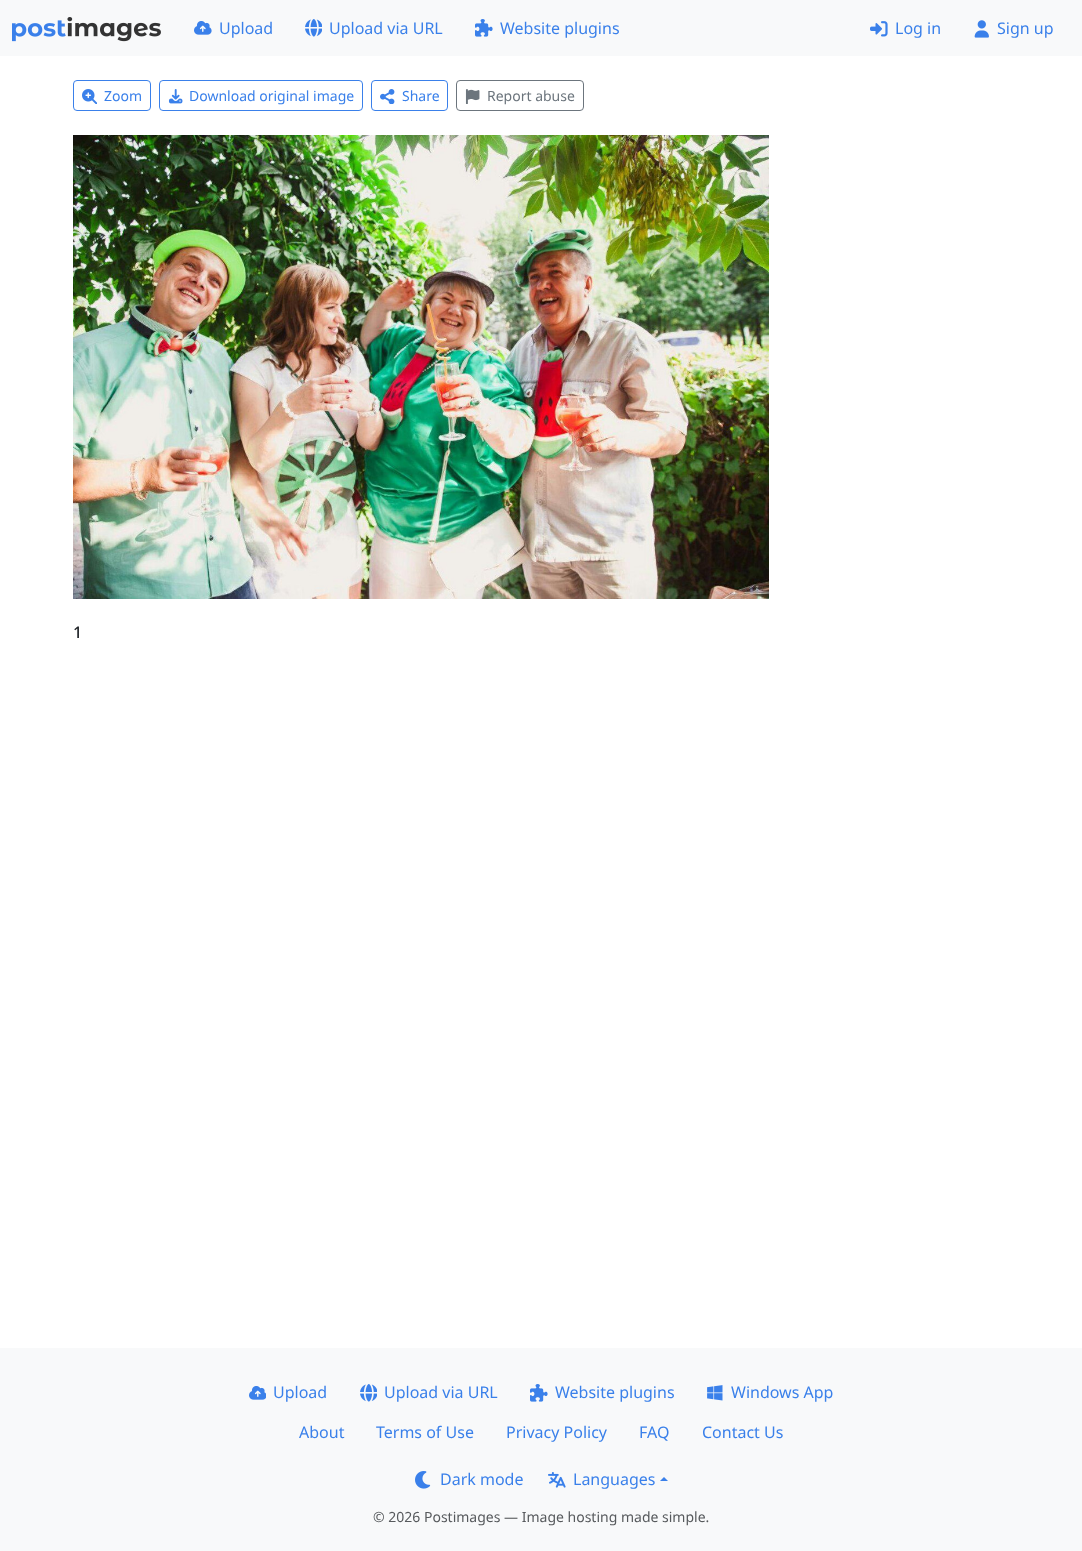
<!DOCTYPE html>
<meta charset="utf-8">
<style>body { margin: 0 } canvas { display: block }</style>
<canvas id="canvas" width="1082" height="1551"></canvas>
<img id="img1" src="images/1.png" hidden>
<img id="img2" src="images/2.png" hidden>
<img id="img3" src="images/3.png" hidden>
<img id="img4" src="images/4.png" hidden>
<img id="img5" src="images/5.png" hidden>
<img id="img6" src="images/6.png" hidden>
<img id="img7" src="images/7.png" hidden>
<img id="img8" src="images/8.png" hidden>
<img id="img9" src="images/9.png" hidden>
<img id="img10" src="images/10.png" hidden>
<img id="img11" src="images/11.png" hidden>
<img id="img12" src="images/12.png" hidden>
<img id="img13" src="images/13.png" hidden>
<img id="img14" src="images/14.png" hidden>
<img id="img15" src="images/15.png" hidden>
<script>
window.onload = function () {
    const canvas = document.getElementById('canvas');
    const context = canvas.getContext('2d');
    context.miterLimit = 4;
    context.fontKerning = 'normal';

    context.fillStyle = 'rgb(255, 255, 255)';
    context.fillRect(0, 0, 1082, 1551);
    context.fillStyle = 'rgb(248, 249, 250)';
    context.fillRect(0, 0, 1082, 56);
    context.drawImage(document.getElementById('img1'), 12, 17, 149, 25);
    context.drawImage(document.getElementById('img2'), 194, 21, 18, 14);
    context.drawImage(document.getElementById('img3'), 305, 19, 17, 18);
    context.drawImage(document.getElementById('img4'), 475, 19, 18, 18);
    context.drawImage(document.getElementById('img5'), 870, 21, 18, 16);
    context.drawImage(document.getElementById('img6'), 974, 20, 15, 18);
    context.beginPath();
    context.roundRect(73.5, 80.5, 77, 30, 3.5);
    context.strokeStyle = 'rgb(58, 128, 234)';
    context.stroke();
    context.drawImage(document.getElementById('img7'), 82, 89, 15, 15);
    context.beginPath();
    context.roundRect(159.5, 80.5, 203, 30, 3.5);
    context.stroke();
    context.drawImage(document.getElementById('img8'), 168, 89, 15, 15);
    context.beginPath();
    context.roundRect(371.5, 80.5, 76, 30, 3.5);
    context.stroke();
    context.drawImage(document.getElementById('img9'), 380, 89, 15, 15);
    context.beginPath();
    context.roundRect(456.5, 80.5, 127, 30, 3.5);
    context.strokeStyle = 'rgb(108, 117, 125)';
    context.stroke();
    context.drawImage(document.getElementById('img10'), 465, 89, 15, 15);
    context.drawImage(document.getElementById('img11'), 73, 135, 696, 464);
    context.fillRect(0, 1348, 1082, 203);
    context.drawImage(document.getElementById('img12'), 249, 1386, 17, 14);
    context.drawImage(document.getElementById('img3'), 360, 1384, 17, 18);
    context.drawImage(document.getElementById('img4'), 530, 1384, 18, 18);
    context.drawImage(document.getElementById('img13'), 707, 1385, 16, 16);
    context.drawImage(document.getElementById('img14'), 415, 1471, 16, 18);
    context.drawImage(document.getElementById('img15'), 548, 1472, 18, 16);
    context.fillStyle = 'rgb(58, 128, 234)';
    context.beginPath();
    context.moveTo(668, 1481);
    context.lineTo(660, 1481);
    context.lineTo(664, 1477);
    context.closePath();
    context.fill();
    context.font = '16px Noto Sans';
    context.fillText('Upload', 219, 34);
    context.fillText('Upload via URL', 329, 34);
    context.fillText('Website plugins', 500, 34);
    context.fillText('Log in', 895, 34);
    context.fillText('Sign up', 997, 34);
    context.font = '14px Noto Sans';
    context.fillText('Zoom', 104, 101);
    context.fillText('Download original image', 189, 101);
    context.fillText('Share', 402, 101);
    context.fillStyle = 'rgb(108, 117, 125)';
    context.fillText('Report abuse', 487, 101);
    context.font = '500 16px Noto Sans';
    context.fillStyle = 'rgb(33, 37, 41)';
    context.fillText('1', 73, 638);
    context.font = '16px Noto Sans';
    context.fillStyle = 'rgb(58, 128, 234)';
    context.fillText('Upload', 273, 1398);
    context.fillText('Upload via URL', 384, 1398);
    context.fillText('Website plugins', 555, 1398);
    context.fillText('Windows App', 731, 1398);
    context.fillText('About', 299, 1438);
    context.fillText('Terms of Use', 376, 1438);
    context.fillText('Privacy Policy', 506, 1438);
    context.fillText('FAQ', 639, 1438);
    context.fillText('Contact Us', 702, 1438);
    context.fillText('Dark mode', 440, 1485);
    context.fillText('Languages', 573, 1485);
    context.font = '14px Noto Sans';
    context.fillStyle = 'rgb(87, 90, 93)';
    context.fillText('© 2026 Postimages — Image hosting made simple.', 373, 1522);
};
</script>
